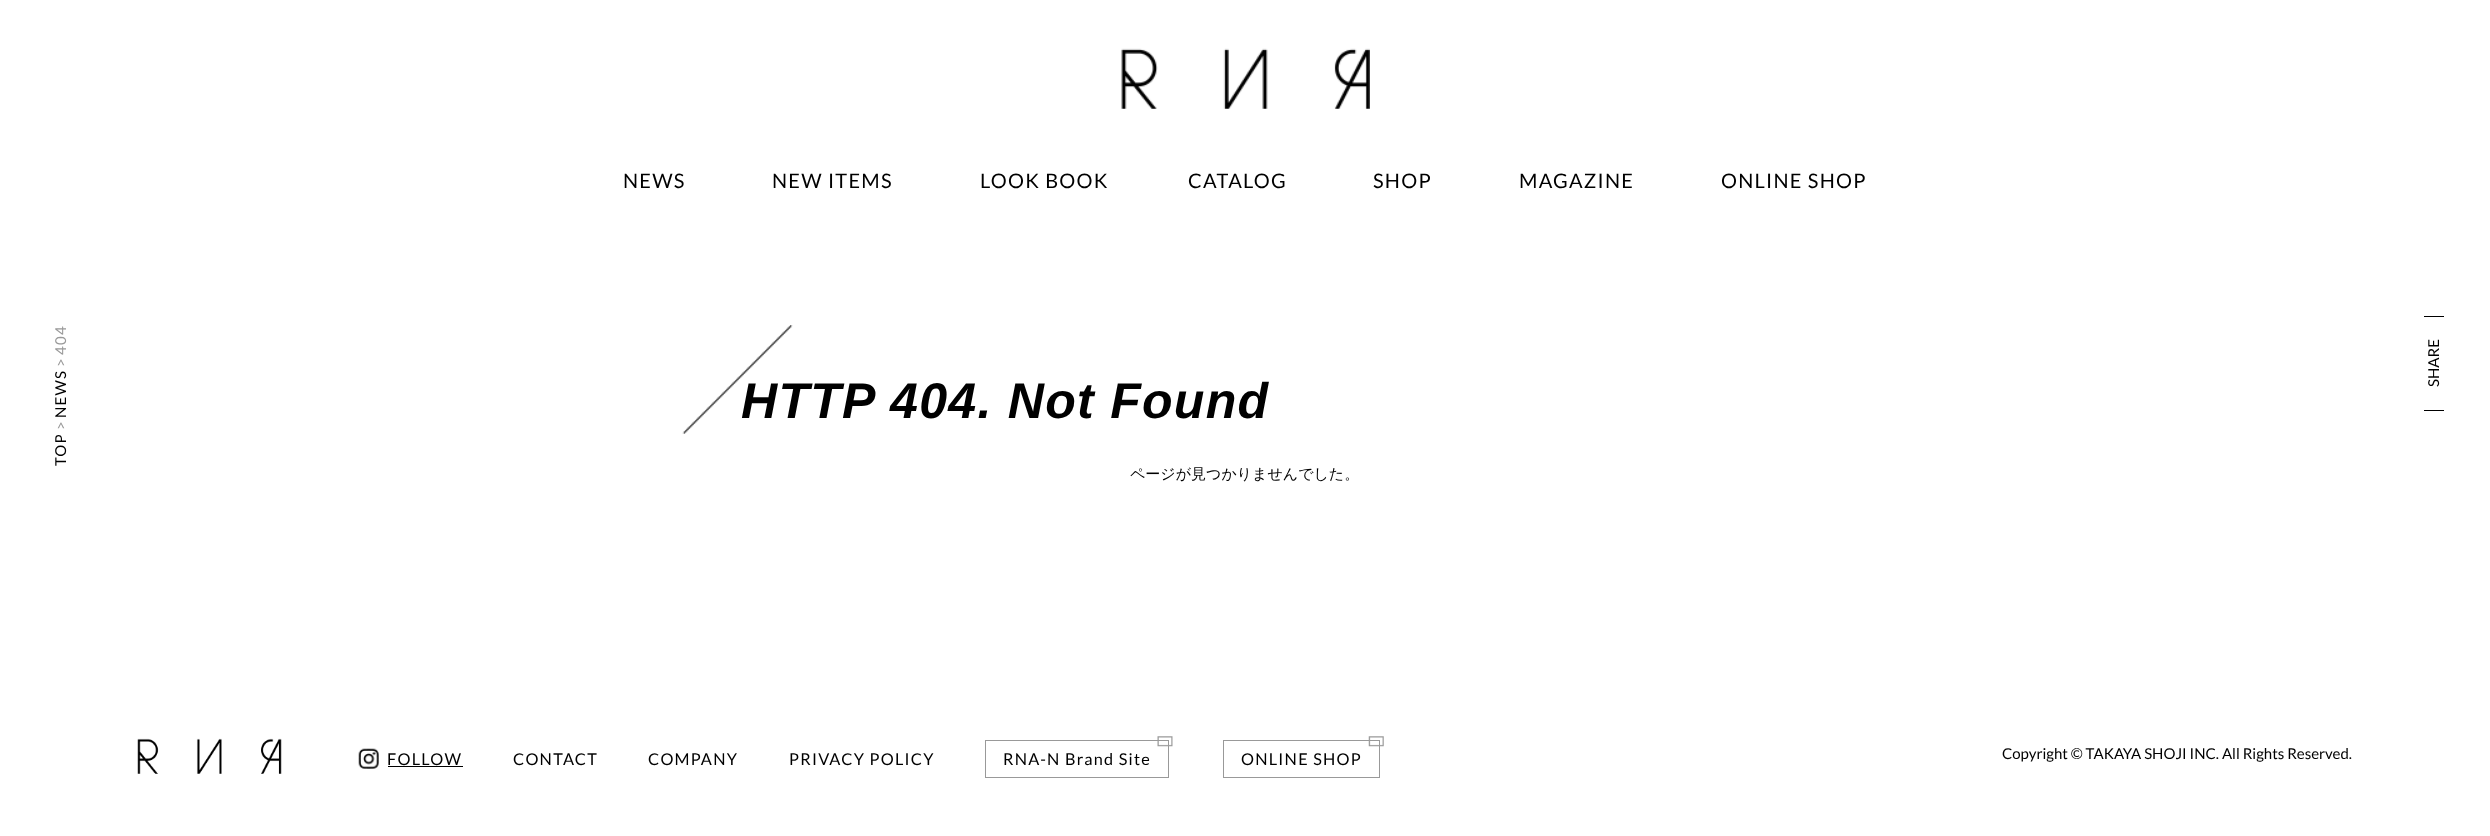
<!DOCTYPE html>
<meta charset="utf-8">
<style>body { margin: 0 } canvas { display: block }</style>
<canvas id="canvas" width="2490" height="836"></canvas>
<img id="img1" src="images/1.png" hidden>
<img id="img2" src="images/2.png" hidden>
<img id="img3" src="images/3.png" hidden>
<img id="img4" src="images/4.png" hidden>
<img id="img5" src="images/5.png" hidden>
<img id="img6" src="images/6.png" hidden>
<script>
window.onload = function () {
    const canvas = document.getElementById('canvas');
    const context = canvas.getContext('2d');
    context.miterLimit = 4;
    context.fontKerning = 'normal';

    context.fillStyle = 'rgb(255, 255, 255)';
    context.fillRect(0, 0, 2490, 836);
    context.drawImage(document.getElementById('img1'), 1121, 48, 249, 61);
    context.fillStyle = 'rgb(0, 0, 0)';
    context.fillRect(2424, 316, 20, 1);
    context.fillRect(2424, 410, 20, 1);
    context.drawImage(document.getElementById('img2'), 682, 325, 111, 109);
    context.drawImage(document.getElementById('img3'), 137, 738, 145, 36);
    context.drawImage(document.getElementById('img4'), 358, 748, 21, 21);
    context.fillRect(388, 766, 75, 1);
    context.drawImage(document.getElementById('img5'), 1157, 736, 16, 11);
    context.strokeStyle = 'rgb(153, 153, 153)';
    context.strokeRect(985.5, 740.5, 183, 37);
    context.drawImage(document.getElementById('img6'), 1368, 736, 16, 11);
    context.strokeRect(1223.5, 740.5, 156, 37);
    context.letterSpacing = '1.25px';
    context.font = '20px Lato';
    context.fillText('NEWS', 623, 188);
    context.fillText('NEW ITEMS', 772, 188);
    context.fillText('LOOK BOOK', 980, 188);
    context.fillText('CATALOG', 1188, 188);
    context.fillText('SHOP', 1373, 188);
    context.fillText('MAGAZINE', 1519, 188);
    context.fillText('ONLINE SHOP', 1721, 188);
    context.font = '15px Lato';
    context.fillStyle = 'rgb(153, 153, 153)';
    context.save();
    context.translate(66, 355);
    context.rotate(-90 * Math.PI / 180);
    context.fillText('404', 0, 0);
    context.restore();
    context.letterSpacing = '0px';
    context.save();
    context.translate(66, 367);
    context.rotate(-90 * Math.PI / 180);
    context.fillText('>', 0, 0);
    context.restore();
    context.letterSpacing = '1.25px';
    context.fillStyle = 'rgb(0, 0, 0)';
    context.save();
    context.translate(66, 418);
    context.rotate(-90 * Math.PI / 180);
    context.fillText('NEWS', 0, 0);
    context.restore();
    context.letterSpacing = '0px';
    context.fillStyle = 'rgb(153, 153, 153)';
    context.save();
    context.translate(66, 430);
    context.rotate(-90 * Math.PI / 180);
    context.fillText('>', 0, 0);
    context.restore();
    context.letterSpacing = '1.25px';
    context.fillStyle = 'rgb(0, 0, 0)';
    context.save();
    context.translate(66, 466);
    context.rotate(-90 * Math.PI / 180);
    context.fillText('TOP', 0, 0);
    context.restore();
    context.letterSpacing = '0px';
    context.save();
    context.translate(2439, 387);
    context.rotate(-90 * Math.PI / 180);
    context.fillText('SHARE', 0, 0);
    context.restore();
    context.letterSpacing = '1.25px';
    context.font = 'italic bold 50.1px Liberation Sans';
    context.fillText('HTTP 404. Not Found', 741, 418);
    context.letterSpacing = '0px';
    context.font = '500 15px WenQuanYi Zen Hei';
    context.fillText('ページが見つかりませんでした。', 1130, 479);
    context.letterSpacing = '1.25px';
    context.font = '16.25px Lato';
    context.fillText('FOLLOW', 387, 765);
    context.fillText('CONTACT', 513, 765);
    context.fillText('COMPANY', 648, 765);
    context.fillText('PRIVACY POLICY', 789, 765);
    context.fillText('RNA-N Brand Site', 1003, 765);
    context.fillText('ONLINE SHOP', 1241, 765);
    context.letterSpacing = '0px';
    context.font = '15px Lato';
    context.fillText('Copyright © TAKAYA SHOJI INC. All Rights Reserved.', 2002, 759);
};
</script>
